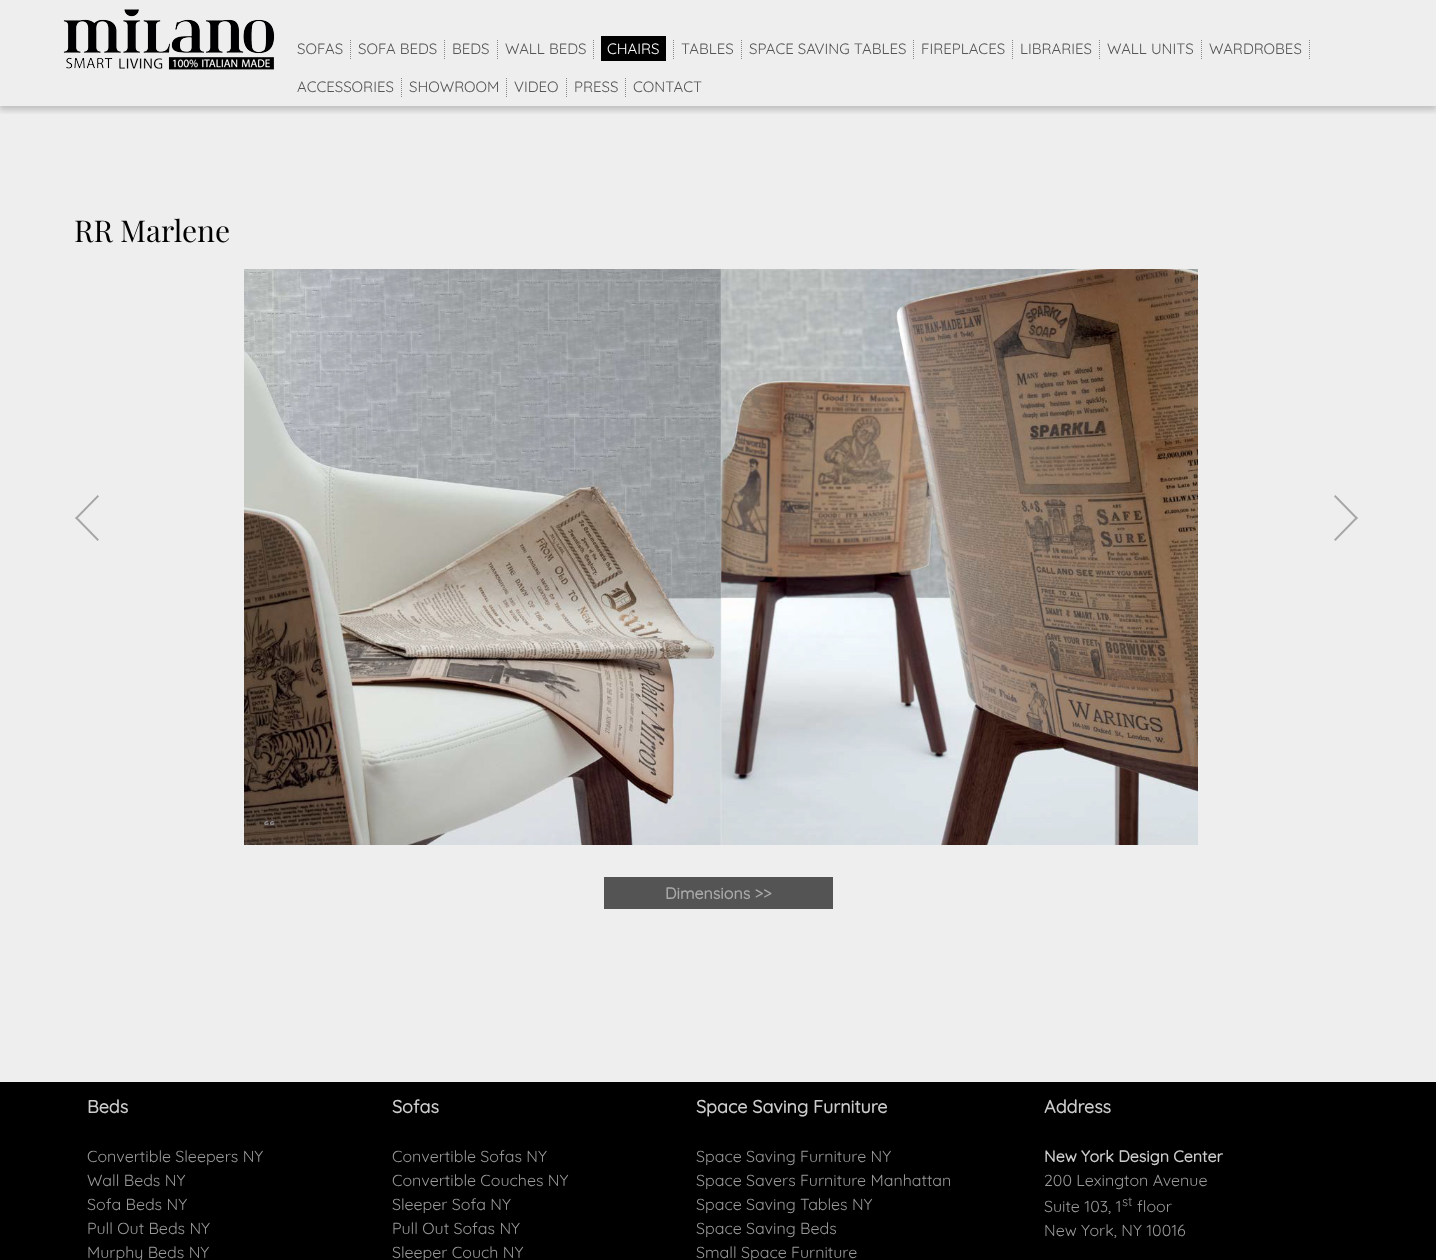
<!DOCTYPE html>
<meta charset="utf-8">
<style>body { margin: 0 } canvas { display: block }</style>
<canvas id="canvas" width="1436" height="1260"></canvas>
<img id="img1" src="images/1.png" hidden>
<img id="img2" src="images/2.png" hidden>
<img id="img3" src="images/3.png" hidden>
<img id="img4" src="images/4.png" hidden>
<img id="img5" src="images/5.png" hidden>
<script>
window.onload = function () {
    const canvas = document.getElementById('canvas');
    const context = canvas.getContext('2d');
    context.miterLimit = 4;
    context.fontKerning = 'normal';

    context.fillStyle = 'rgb(238, 238, 238)';
    context.fillRect(0, 0, 1436, 1260);
    context.save();
    context.beginPath();
    context.rect(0, 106, 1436, 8);
    context.clip();
    context.fillStyle = 'rgba(0, 0, 0, 0.2)';
    context.filter = 'blur(3px)';
    context.beginPath();
    context.rect(-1, 2, 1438, 108);
    context.fill();
    context.filter = 'none';
    context.restore();
    context.drawImage(document.getElementById('img1'), 63, 9, 212, 61);
    context.drawImage(document.getElementById('img2'), 350, 40, 1, 19);
    context.drawImage(document.getElementById('img2'), 444, 40, 1, 19);
    context.drawImage(document.getElementById('img2'), 497, 40, 1, 19);
    context.drawImage(document.getElementById('img2'), 593, 40, 1, 19);
    context.fillStyle = 'rgb(0, 0, 0)';
    context.fillRect(601, 36, 65, 25);
    context.drawImage(document.getElementById('img2'), 673, 40, 1, 19);
    context.drawImage(document.getElementById('img2'), 741, 40, 1, 19);
    context.drawImage(document.getElementById('img2'), 913, 40, 1, 19);
    context.drawImage(document.getElementById('img2'), 1012, 40, 1, 19);
    context.drawImage(document.getElementById('img2'), 1099, 40, 1, 19);
    context.drawImage(document.getElementById('img2'), 1201, 40, 1, 19);
    context.drawImage(document.getElementById('img2'), 1309, 40, 1, 19);
    context.drawImage(document.getElementById('img2'), 401, 78, 1, 19);
    context.drawImage(document.getElementById('img2'), 506, 78, 1, 19);
    context.drawImage(document.getElementById('img2'), 566, 78, 1, 19);
    context.drawImage(document.getElementById('img2'), 625, 78, 1, 19);
    context.drawImage(document.getElementById('img3'), 244, 269, 954, 576);
    context.drawImage(document.getElementById('img4'), 75, 495, 24, 46);
    context.drawImage(document.getElementById('img5'), 1334, 495, 24, 46);
    context.fillStyle = 'rgb(85, 84, 84)';
    context.fillRect(604, 877, 229, 32);
    context.fillStyle = 'rgb(0, 0, 0)';
    context.fillRect(0, 1082, 1436, 178);
    context.font = '300 15px Quicksand';
    context.fillStyle = 'rgb(85, 85, 85)';
    context.fillText('SOFAS', 297, 54);
    context.fillText('SOFA BEDS', 358, 54);
    context.fillText('BEDS', 452, 54);
    context.fillText('WALL BEDS', 505, 54);
    context.fillStyle = 'rgb(255, 255, 255)';
    context.fillText('CHAIRS', 607, 54);
    context.fillStyle = 'rgb(85, 85, 85)';
    context.fillText('TABLES', 681, 54);
    context.fillText('SPACE SAVING TABLES', 749, 54);
    context.fillText('FIREPLACES', 921, 54);
    context.fillText('LIBRARIES', 1020, 54);
    context.fillText('WALL UNITS', 1107, 54);
    context.fillText('WARDROBES', 1209, 54);
    context.fillText('ACCESSORIES', 297, 92);
    context.fillText('SHOWROOM', 409, 92);
    context.fillText('VIDEO', 514, 92);
    context.fillText('PRESS', 574, 92);
    context.fillText('CONTACT', 633, 92);
    context.font = '30px Playfair Display';
    context.fillStyle = 'rgb(0, 0, 0)';
    context.fillText('RR Marlene', 74, 242);
    context.font = 'bold 16px Quicksand';
    context.fillStyle = 'rgb(169, 169, 169)';
    context.fillText('Dimensions >>', 665, 899);
    context.font = 'bold 18px Quicksand';
    context.fillStyle = 'rgb(204, 204, 204)';
    context.fillText('Beds', 87, 1113);
    context.font = '300 16px Quicksand';
    context.fillStyle = 'rgb(153, 153, 153)';
    context.fillText('Convertible Sleepers NY', 87, 1162);
    context.fillText('Wall Beds NY', 87, 1186);
    context.fillText('Sofa Beds NY', 87, 1210);
    context.fillText('Pull Out Beds NY', 87, 1234);
    context.fillText('Murphy Beds NY', 87, 1258);
    context.font = 'bold 18px Quicksand';
    context.fillStyle = 'rgb(204, 204, 204)';
    context.fillText('Sofas', 392, 1113);
    context.font = '300 16px Quicksand';
    context.fillStyle = 'rgb(153, 153, 153)';
    context.fillText('Convertible Sofas NY', 392, 1162);
    context.fillText('Convertible Couches NY', 392, 1186);
    context.fillText('Sleeper Sofa NY', 392, 1210);
    context.fillText('Pull Out Sofas NY', 392, 1234);
    context.fillText('Sleeper Couch NY', 392, 1258);
    context.font = 'bold 18px Quicksand';
    context.fillStyle = 'rgb(204, 204, 204)';
    context.fillText('Space Saving Furniture', 696, 1113);
    context.font = '300 16px Quicksand';
    context.fillStyle = 'rgb(153, 153, 153)';
    context.fillText('Space Saving Furniture NY', 696, 1162);
    context.fillText('Space Savers Furniture Manhattan', 696, 1186);
    context.fillText('Space Saving Tables NY', 696, 1210);
    context.fillText('Space Saving Beds', 696, 1234);
    context.fillText('Small Space Furniture', 696, 1258);
    context.font = 'bold 18px Quicksand';
    context.fillStyle = 'rgb(204, 204, 204)';
    context.fillText('Address', 1044, 1113);
    context.font = 'bold 16px Quicksand';
    context.fillText('New York Design Center', 1044, 1162);
    context.font = '300 16px Quicksand';
    context.fillStyle = 'rgb(153, 153, 153)';
    context.fillText('200 Lexington Avenue', 1044, 1186);
    context.fillText('Suite 103, 1', 1044, 1212);
    context.font = '300 13px Quicksand';
    context.fillText('st', 1122, 1206);
    context.font = '300 16px Quicksand';
    context.fillText('floor', 1137, 1212);
    context.fillText('New York, NY 10016', 1044, 1236);
};
</script>
